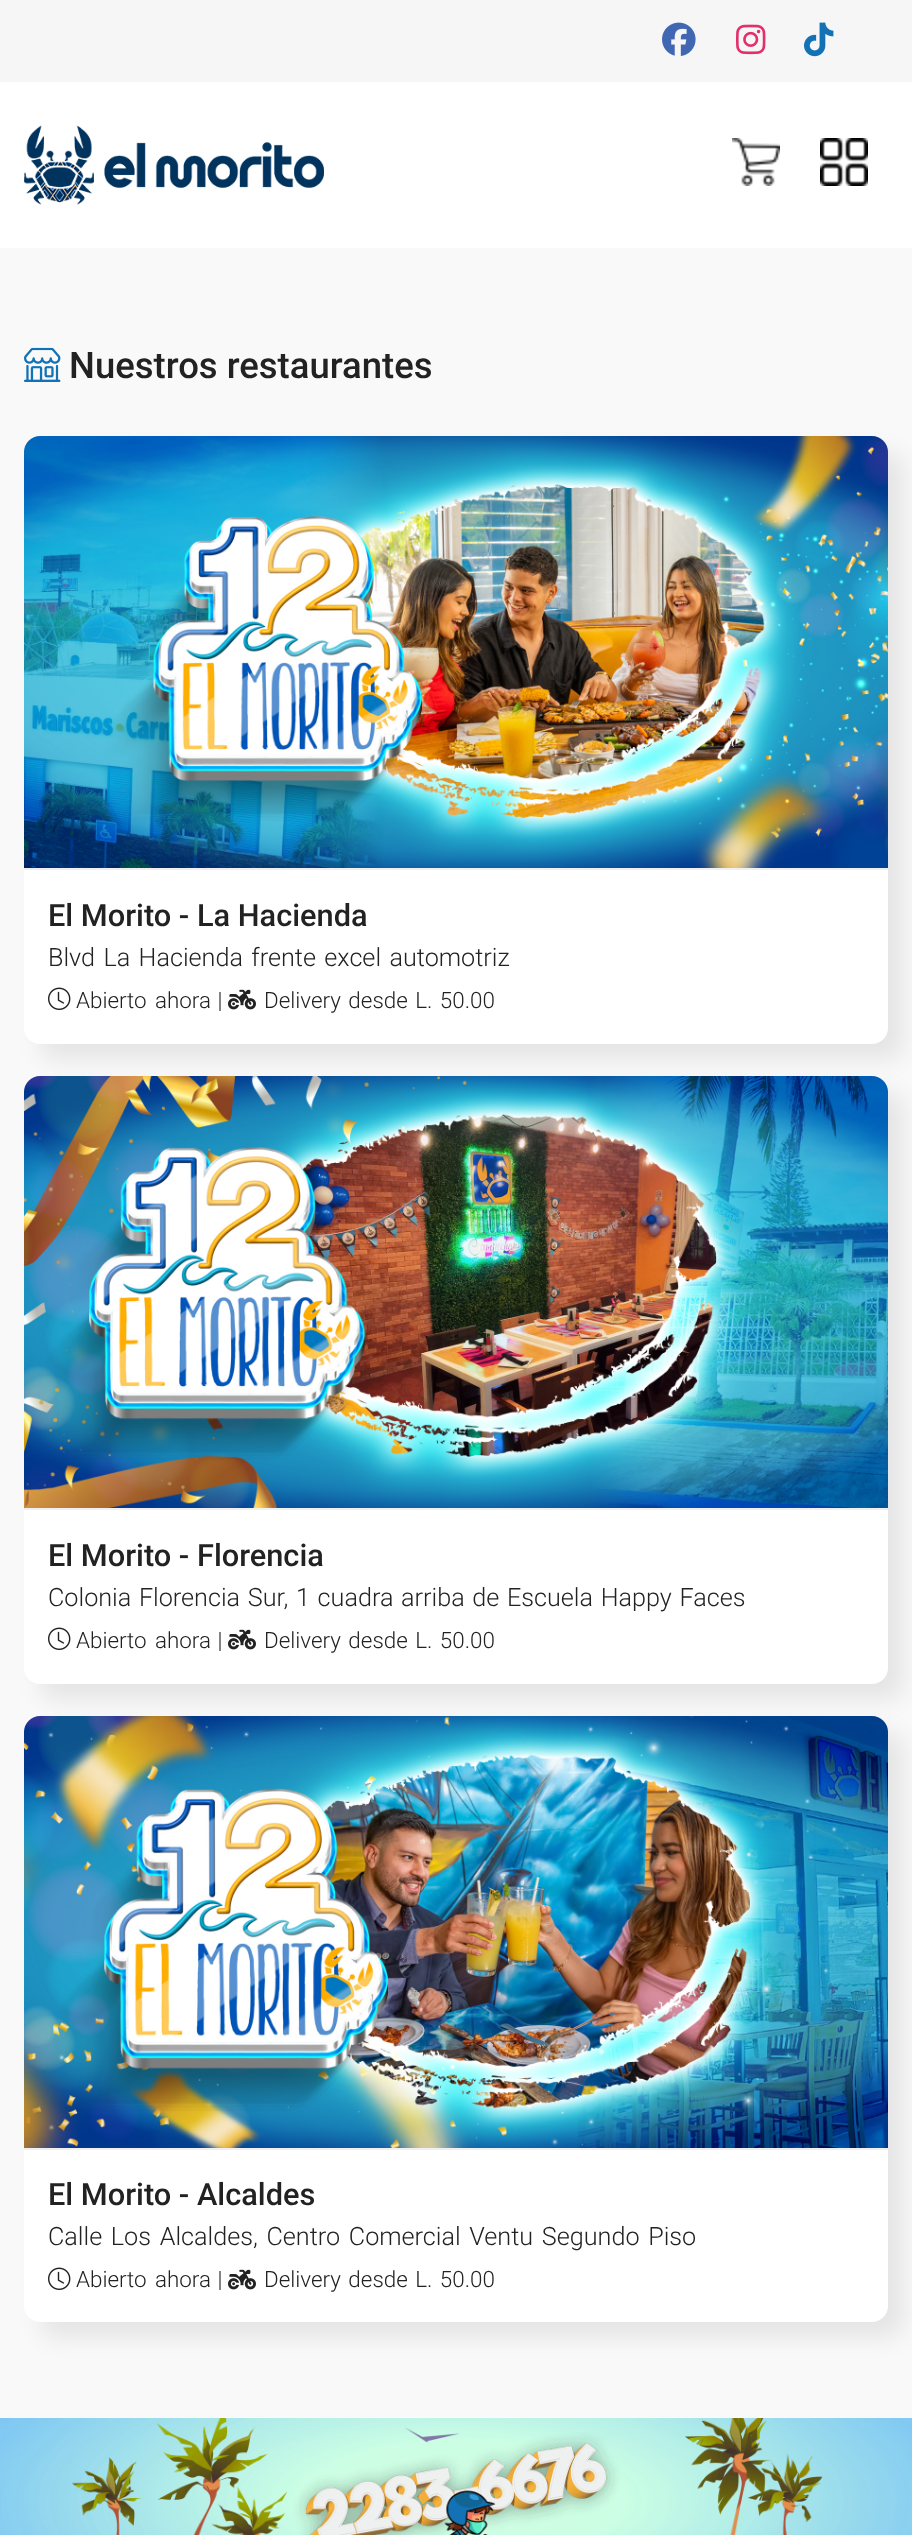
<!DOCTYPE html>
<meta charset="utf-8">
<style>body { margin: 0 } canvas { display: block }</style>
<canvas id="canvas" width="912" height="2535"></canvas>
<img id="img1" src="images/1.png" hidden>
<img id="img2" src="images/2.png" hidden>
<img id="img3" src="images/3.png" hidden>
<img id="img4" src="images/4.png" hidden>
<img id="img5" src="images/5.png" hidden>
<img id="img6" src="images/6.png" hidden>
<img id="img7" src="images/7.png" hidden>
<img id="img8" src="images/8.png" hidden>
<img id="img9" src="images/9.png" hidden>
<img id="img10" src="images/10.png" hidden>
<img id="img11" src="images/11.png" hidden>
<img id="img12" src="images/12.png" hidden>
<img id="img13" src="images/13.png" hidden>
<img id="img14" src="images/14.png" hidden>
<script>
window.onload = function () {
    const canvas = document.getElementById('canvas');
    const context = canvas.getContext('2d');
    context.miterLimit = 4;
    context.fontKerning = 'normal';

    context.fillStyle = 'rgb(249, 249, 249)';
    context.fillRect(0, 0, 912, 2535);
    context.fillStyle = 'rgb(246, 246, 246)';
    context.fillRect(0, 0, 912, 82);
    context.drawImage(document.getElementById('img1'), 662, 22, 34, 34);
    context.drawImage(document.getElementById('img2'), 736, 24, 30, 31);
    context.drawImage(document.getElementById('img3'), 804, 22, 30, 35);
    context.fillStyle = 'rgb(255, 255, 255)';
    context.fillRect(0, 82, 912, 166);
    context.drawImage(document.getElementById('img4'), 24, 125, 300, 80);
    context.drawImage(document.getElementById('img5'), 732, 138, 48, 48);
    context.drawImage(document.getElementById('img6'), 820, 138, 48, 48);
    context.drawImage(document.getElementById('img7'), 24, 347, 37, 35);
    context.fillStyle = 'rgba(0, 0, 0, 0.08)';
    context.filter = 'blur(11px)';
    context.beginPath();
    context.roundRect(40, 452, 864, 608, 16);
    context.fill();
    context.filter = 'none';
    context.fillStyle = 'rgb(255, 255, 255)';
    context.beginPath();
    context.roundRect(24, 436, 864, 608, 16);
    context.fill();
    context.drawImage(document.getElementById('img8'), 24, 436, 864, 432);
    context.fillStyle = 'rgb(240, 240, 240)';
    context.fillRect(24, 868, 864, 2);
    context.drawImage(document.getElementById('img9'), 48, 987, 23, 23);
    context.drawImage(document.getElementById('img10'), 228, 989, 28, 21);
    context.fillStyle = 'rgba(0, 0, 0, 0.08)';
    context.filter = 'blur(11px)';
    context.beginPath();
    context.roundRect(40, 1092, 864, 608, 16);
    context.fill();
    context.filter = 'none';
    context.fillStyle = 'rgb(255, 255, 255)';
    context.beginPath();
    context.roundRect(24, 1076, 864, 608, 16);
    context.fill();
    context.drawImage(document.getElementById('img11'), 24, 1076, 864, 432);
    context.fillStyle = 'rgb(240, 240, 240)';
    context.fillRect(24, 1508, 864, 2);
    context.drawImage(document.getElementById('img9'), 48, 1627, 23, 23);
    context.drawImage(document.getElementById('img10'), 228, 1629, 28, 21);
    context.fillStyle = 'rgba(0, 0, 0, 0.08)';
    context.filter = 'blur(11px)';
    context.beginPath();
    context.roundRect(40, 1732, 864, 606, 16);
    context.fill();
    context.filter = 'none';
    context.fillStyle = 'rgb(255, 255, 255)';
    context.beginPath();
    context.roundRect(24, 1716, 864, 606, 16);
    context.fill();
    context.drawImage(document.getElementById('img12'), 24, 1716, 864, 432);
    context.fillStyle = 'rgb(240, 240, 240)';
    context.fillRect(24, 2148, 864, 2);
    context.drawImage(document.getElementById('img9'), 48, 2267, 23, 23);
    context.drawImage(document.getElementById('img10'), 228, 2269, 28, 21);
    context.drawImage(document.getElementById('img13'), 0, 2418, 912, 117);
    context.drawImage(document.getElementById('img14'), 72, 2418, 751, 117);
    context.font = '500 36.5px Roboto';
    context.fillStyle = 'rgb(34, 34, 34)';
    context.fillText('Nuestros restaurantes', 69, 378);
    context.font = '500 30.75px Roboto';
    context.fillText('El Morito - La Hacienda', 48, 926);
    context.wordSpacing = '2.25px';
    context.font = '300 25.2px Roboto';
    context.fillText('Blvd La Hacienda frente excel automotriz', 48, 966);
    context.wordSpacing = '0px';
    context.font = '300 22.4px Roboto';
    context.fillText('Abierto', 76, 1008);
    context.wordSpacing = '1px';
    context.fillText('ahora |', 155, 1008);
    context.wordSpacing = '2px';
    context.fillText('Delivery desde L. 50.00', 264, 1008);
    context.wordSpacing = '0px';
    context.font = '500 30.75px Roboto';
    context.fillText('El Morito - Florencia', 48, 1566);
    context.wordSpacing = '1.5px';
    context.font = '300 25.2px Roboto';
    context.fillText('Colonia Florencia Sur, 1 cuadra arriba de Escuela Happy Faces', 48, 1606);
    context.wordSpacing = '0px';
    context.font = '300 22.4px Roboto';
    context.fillText('Abierto', 76, 1648);
    context.wordSpacing = '1px';
    context.fillText('ahora |', 155, 1648);
    context.wordSpacing = '2px';
    context.fillText('Delivery desde L. 50.00', 264, 1648);
    context.wordSpacing = '0px';
    context.font = '500 30.75px Roboto';
    context.fillText('El Morito - Alcaldes', 48, 2205);
    context.wordSpacing = '2.5px';
    context.font = '300 25.2px Roboto';
    context.fillText('Calle Los Alcaldes, Centro Comercial Ventu Segundo Piso', 48, 2245);
    context.wordSpacing = '0px';
    context.font = '300 22.4px Roboto';
    context.fillText('Abierto', 76, 2287);
    context.wordSpacing = '1px';
    context.fillText('ahora |', 155, 2287);
    context.wordSpacing = '2px';
    context.fillText('Delivery desde L. 50.00', 264, 2287);
};
</script>
